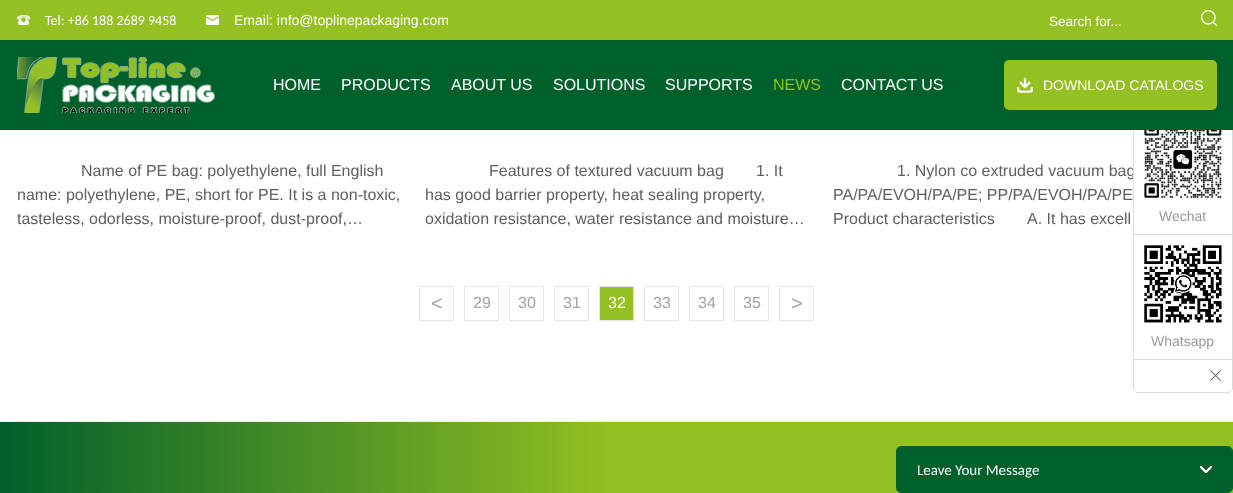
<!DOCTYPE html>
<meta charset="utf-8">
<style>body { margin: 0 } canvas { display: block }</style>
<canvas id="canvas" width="1233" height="493"></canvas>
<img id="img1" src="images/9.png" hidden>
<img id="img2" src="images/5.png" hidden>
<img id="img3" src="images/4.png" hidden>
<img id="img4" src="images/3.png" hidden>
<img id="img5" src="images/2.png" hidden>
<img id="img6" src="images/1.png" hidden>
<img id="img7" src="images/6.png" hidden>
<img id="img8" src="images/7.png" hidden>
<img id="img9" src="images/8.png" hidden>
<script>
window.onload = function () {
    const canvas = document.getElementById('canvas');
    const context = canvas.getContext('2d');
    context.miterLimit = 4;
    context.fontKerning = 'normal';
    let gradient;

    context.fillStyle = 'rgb(255, 255, 255)';
    context.fillRect(0, 0, 1233, 493);
    context.strokeStyle = 'rgb(229, 229, 229)';
    context.strokeRect(419.5, 286.5, 34, 34);
    context.strokeRect(464.5, 286.5, 34, 34);
    context.strokeRect(509.5, 286.5, 34, 34);
    context.strokeRect(554.5, 286.5, 34, 34);
    context.fillStyle = 'rgb(148, 192, 33)';
    context.beginPath();
    context.rect(599.5, 286.5, 34, 34);
    context.fill();
    context.stroke();
    context.strokeRect(644.5, 286.5, 34, 34);
    context.strokeRect(689.5, 286.5, 34, 34);
    context.strokeRect(734.5, 286.5, 34, 34);
    context.strokeRect(779.5, 286.5, 34, 34);
    gradient = context.createLinearGradient(0, 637, 1233, 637);
    gradient.addColorStop(0, 'rgb(0, 96, 43)');
    gradient.addColorStop(0.5, 'rgb(148, 192, 33)');
    gradient.addColorStop(1, 'rgb(148, 192, 33)');
    context.fillStyle = gradient;
    context.fillRect(0, 422, 1233, 71);
    context.fillStyle = 'rgb(238, 238, 238)';
    context.fillRect(0, 421, 1233, 1);
    context.beginPath();
    context.roundRect(896.5, 446.5, 336, 46, 4.5);
    context.strokeStyle = 'rgb(0, 96, 43)';
    context.stroke();
    context.fillStyle = 'rgb(0, 96, 43)';
    context.beginPath();
    context.roundRect(897, 447, 335, 45, 4);
    context.fill();
    context.drawImage(document.getElementById('img1'), 1200, 466, 12, 7);
    context.font = '16px Liberation Sans';
    context.fillStyle = 'rgb(95, 95, 95)';
    context.fillText('Name of PE bag: polyethylene, full English', 81, 176);
    context.fillText('name: polyethylene, PE, short for PE. It is a non-toxic,', 17, 200);
    context.fillText('tasteless, odorless, moisture-proof, dust-proof,…', 17, 224);
    context.fillText('Features of textured vacuum bag', 489, 176);
    context.fillText('1. It', 756, 176);
    context.fillText('has good barrier property, heat sealing property,', 425, 200);
    context.fillText('oxidation resistance, water resistance and moisture…', 425, 224);
    context.fillText('1. Nylon co extruded vacuum bag', 897, 176);
    context.fillText('PA/PA/EVOH/PA/PE; PP/PA/EVOH/PA/PE', 833, 200);
    context.fillText('Product characteristics', 833, 224);
    context.fillText('A. It has excell', 1027, 224);
    context.font = '20px Liberation Sans';
    context.fillStyle = 'rgb(162, 162, 162)';
    context.fillText('<', 431, 310);
    context.font = '16px Liberation Sans';
    context.fillText('29', 473, 308);
    context.fillText('30', 518, 308);
    context.fillText('31', 563, 308);
    context.fillStyle = 'rgb(255, 255, 255)';
    context.fillText('32', 608, 308);
    context.fillStyle = 'rgb(162, 162, 162)';
    context.fillText('33', 653, 308);
    context.fillText('34', 698, 308);
    context.fillText('35', 743, 308);
    context.font = '20px Liberation Sans';
    context.fillText('>', 791, 310);
    context.fillStyle = 'rgb(255, 255, 255)';
    context.beginPath();
    context.roundRect(1133.5, 15.5, 99, 377, 4.5);
    context.fill();
    context.strokeStyle = 'rgb(218, 218, 218)';
    context.stroke();
    context.fillStyle = 'rgb(0, 96, 43)';
    context.fillRect(0, 40, 1233, 90);
    context.font = '16px Liberation Sans';
    context.fillStyle = 'rgb(255, 255, 255)';
    context.fillText('CONTACT US', 841, 90);
    context.fillStyle = 'rgb(148, 192, 33)';
    context.fillText('NEWS', 773, 90);
    context.fillStyle = 'rgb(255, 255, 255)';
    context.fillText('SUPPORTS', 665, 90);
    context.fillText('SOLUTIONS', 553, 90);
    context.fillText('ABOUT US', 451, 90);
    context.fillText('PRODUCTS', 341, 90);
    context.fillText('HOME', 273, 90);
    context.fillStyle = 'rgb(148, 192, 33)';
    context.beginPath();
    context.roundRect(1004, 60, 213, 50, 5);
    context.fill();
    context.font = '14px Liberation Sans';
    context.fillStyle = 'rgb(255, 255, 255)';
    context.fillText('DOWNLOAD CATALOGS', 1043, 90);
    context.drawImage(document.getElementById('img2'), 1017, 78, 16, 15);
    context.drawImage(document.getElementById('img3'), 17, 57, 198, 56);
    context.fillStyle = 'rgb(148, 192, 33)';
    context.fillRect(0, 0, 1233, 40);
    context.drawImage(document.getElementById('img4'), 1201, 10, 16, 16);
    context.font = '13.5px Liberation Sans';
    context.fillStyle = 'rgb(255, 255, 255)';
    context.fillText('Search for...', 1049, 26);
    context.font = '14px Liberation Sans';
    context.fillText('Email: info@toplinepackaging.com', 234, 25);
    context.drawImage(document.getElementById('img5'), 206, 15, 13, 10);
    context.font = '14px Carlito';
    context.fillText('Tel: +86 188 2689 9458', 45, 25);
    context.drawImage(document.getElementById('img6'), 17, 15, 13, 10);
    context.fillStyle = 'rgb(218, 218, 218)';
    context.fillRect(1134, 234, 98, 1);
    context.drawImage(document.getElementById('img7'), 1144, 130, 78, 68);
    context.font = '14px Liberation Sans';
    context.fillStyle = 'rgb(153, 153, 153)';
    context.fillText('Wechat', 1159, 221);
    context.fillStyle = 'rgb(218, 218, 218)';
    context.fillRect(1134, 359, 98, 1);
    context.drawImage(document.getElementById('img8'), 1144, 245, 78, 78);
    context.fillStyle = 'rgb(153, 153, 153)';
    context.fillText('Whatsapp', 1151, 346);
    context.drawImage(document.getElementById('img9'), 1210, 370, 11, 11);
    context.font = '15px Carlito';
    context.fillStyle = 'rgb(255, 255, 255)';
    context.fillText('Leave Your Message', 917, 475);
};
</script>
